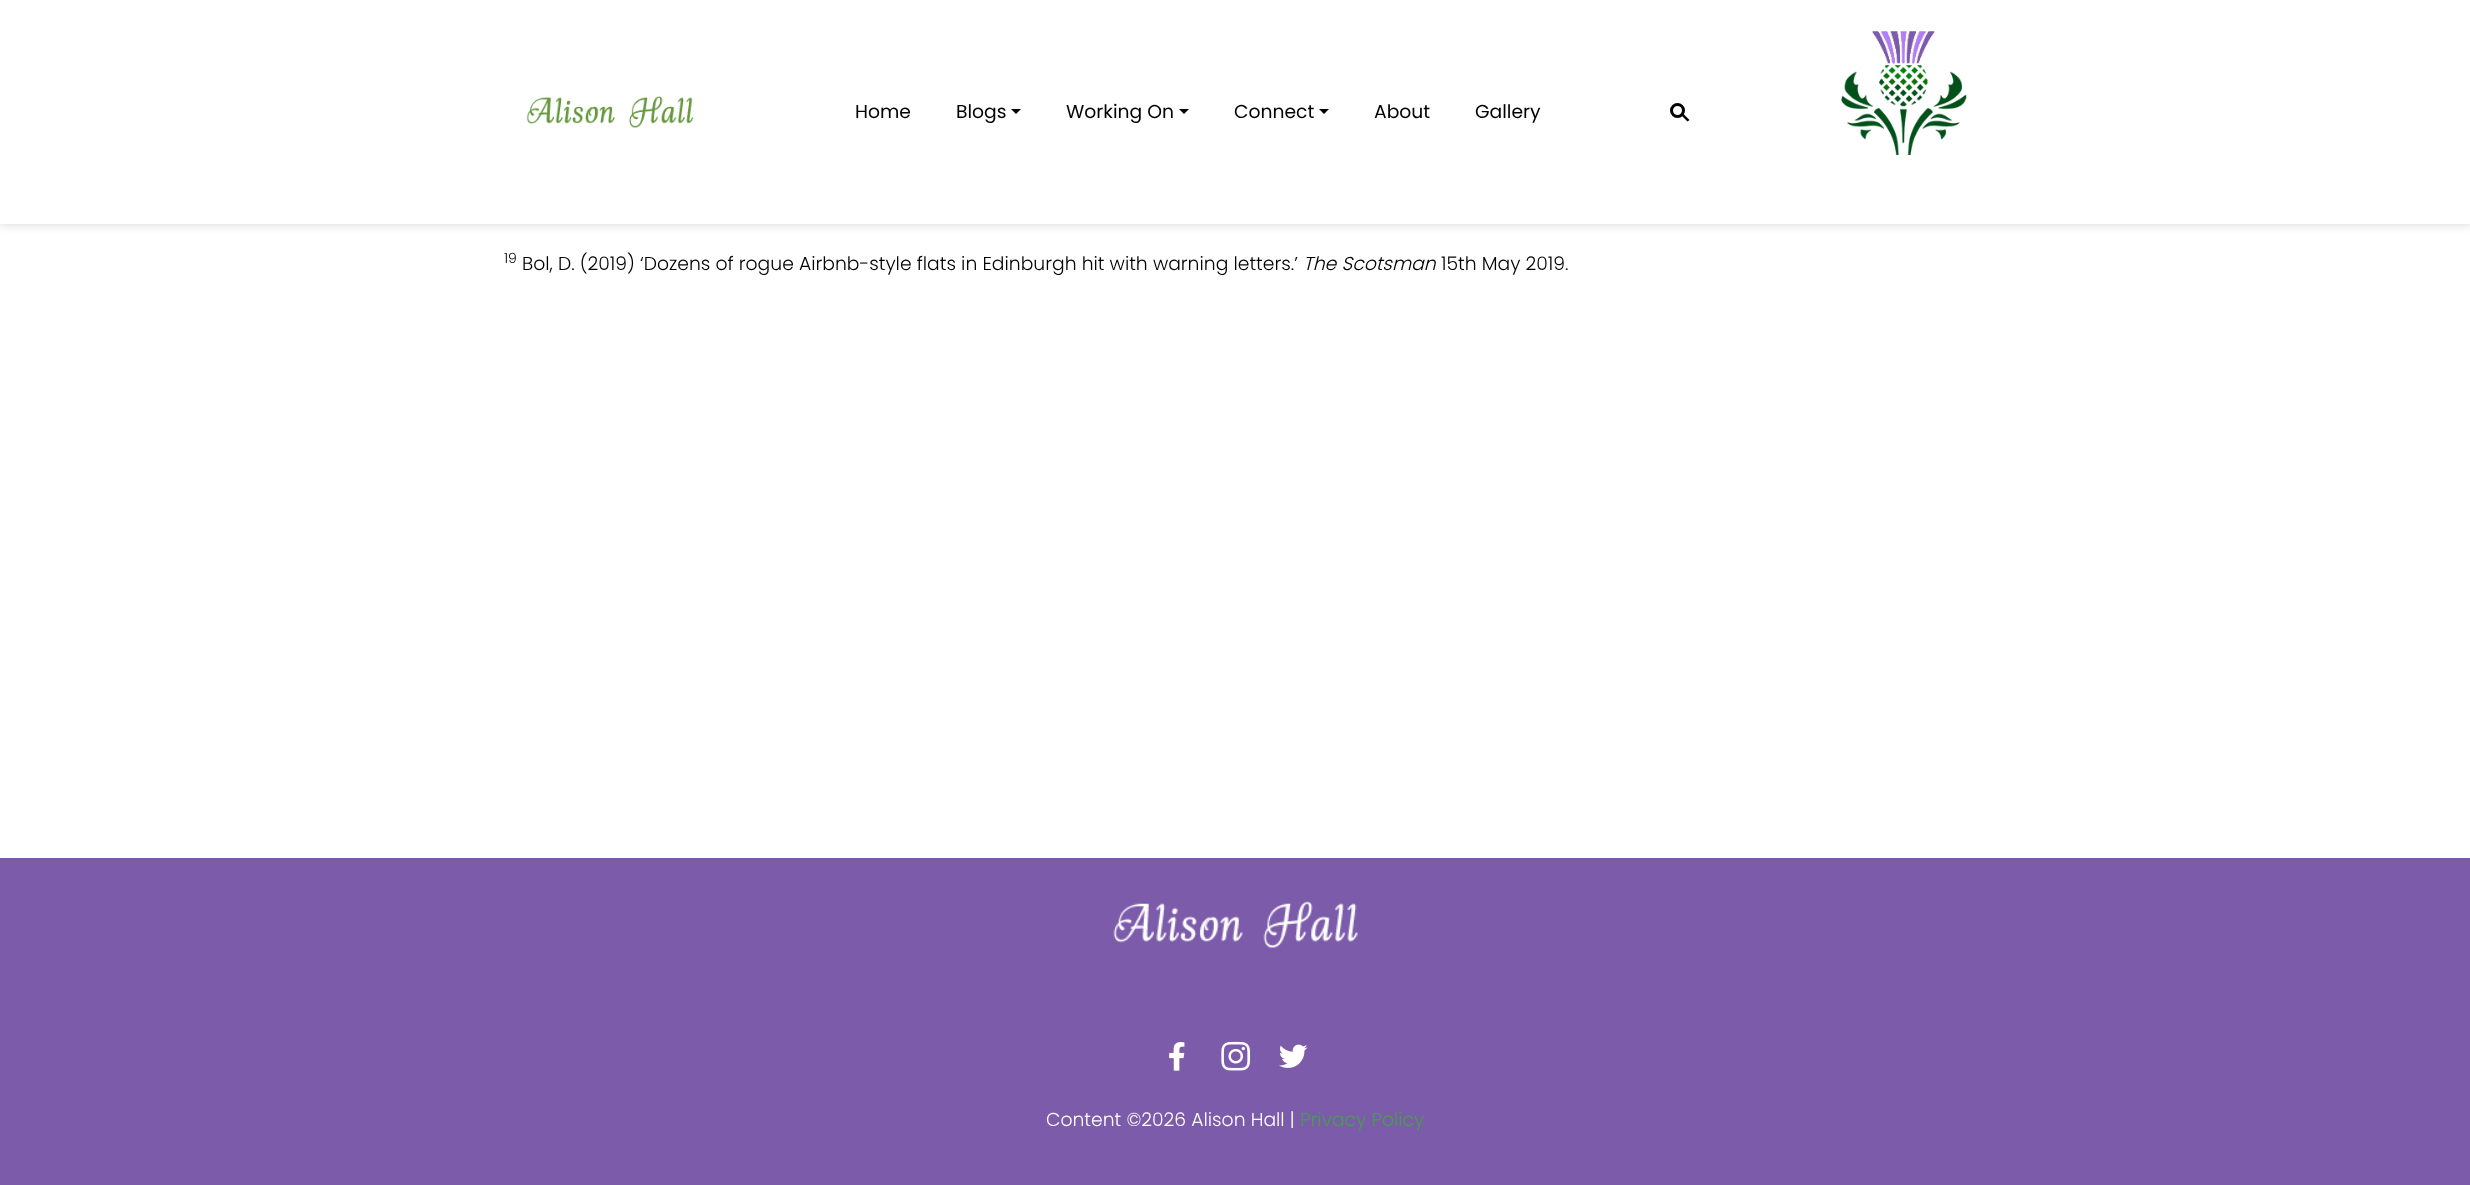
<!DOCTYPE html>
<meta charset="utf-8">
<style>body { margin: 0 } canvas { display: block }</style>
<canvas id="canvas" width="2470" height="1185"></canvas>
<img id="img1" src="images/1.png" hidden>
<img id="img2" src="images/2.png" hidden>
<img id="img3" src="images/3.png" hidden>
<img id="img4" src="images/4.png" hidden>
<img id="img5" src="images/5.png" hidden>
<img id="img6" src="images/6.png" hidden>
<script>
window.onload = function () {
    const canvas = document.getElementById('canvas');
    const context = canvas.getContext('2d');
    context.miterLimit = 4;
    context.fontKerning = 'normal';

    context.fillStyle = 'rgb(255, 255, 255)';
    context.fillRect(0, 0, 2470, 1185);
    context.fillStyle = 'rgba(0, 0, 0, 0.15)';
    context.filter = 'blur(5px)';
    context.beginPath();
    context.rect(1, 1, 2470, 224);
    context.fill();
    context.filter = 'none';
    context.fillStyle = 'rgb(255, 255, 255)';
    context.fillRect(0, 0, 2470, 224);
    context.drawImage(document.getElementById('img1'), 526, 96, 168, 32);
    context.fillStyle = 'rgb(0, 0, 0)';
    context.beginPath();
    context.moveTo(1011, 109);
    context.lineTo(1021, 109);
    context.lineTo(1016, 114);
    context.closePath();
    context.fill();
    context.beginPath();
    context.moveTo(1179, 109);
    context.lineTo(1189, 109);
    context.lineTo(1184, 114);
    context.closePath();
    context.fill();
    context.beginPath();
    context.moveTo(1319, 109);
    context.lineTo(1329, 109);
    context.lineTo(1324, 114);
    context.closePath();
    context.fill();
    context.beginPath();
    context.arc(1677.5, 110.5, 6, 0, 2 * Math.PI);
    context.strokeStyle = 'rgb(0, 0, 0)';
    context.lineWidth = 3;
    context.stroke();
    context.beginPath();
    context.moveTo(1682.5, 113);
    context.lineTo(1689.5, 120);
    context.lineTo(1687.5, 121.5);
    context.lineTo(1680.5, 114.5);
    context.closePath();
    context.fill();
    context.drawImage(document.getElementById('img2'), 1841, 31, 126, 124);
    context.fillStyle = 'rgb(124, 91, 171)';
    context.fillRect(0, 858, 2470, 327);
    context.drawImage(document.getElementById('img3'), 1113, 901, 245, 47);
    context.drawImage(document.getElementById('img4'), 1169, 1042, 16, 29);
    context.drawImage(document.getElementById('img5'), 1221, 1041, 30, 30);
    context.drawImage(document.getElementById('img6'), 1279, 1044, 29, 24);
    context.font = '18.75px Poppins';
    context.fillStyle = 'rgb(0, 0, 0)';
    context.fillText('Home', 855, 118);
    context.fillText('Blogs', 956, 118);
    context.fillText('Working On', 1066, 118);
    context.fillText('Connect', 1234, 118);
    context.fillText('About', 1374, 118);
    context.fillText('Gallery', 1475, 118);
    context.font = '300 14px Poppins';
    context.fillText('19', 504, 263);
    context.font = '300 18.75px Poppins';
    context.fillText('Bol, D. (2019) ‘Dozens of rogue Airbnb-style flats in Edinburgh hit with warning letters.’', 522, 270);
    context.font = 'italic 300 18.75px Poppins';
    context.fillText('The Scotsman', 1303, 270);
    context.font = '300 18.75px Poppins';
    context.fillText('15th May 2019.', 1441, 270);
    context.fillStyle = 'rgb(255, 255, 255)';
    context.fillText('Content ©2026 Alison Hall |', 1046, 1126);
    context.fillStyle = 'rgb(67, 160, 71)';
    context.fillText('Privacy Policy', 1300, 1126);
};
</script>
